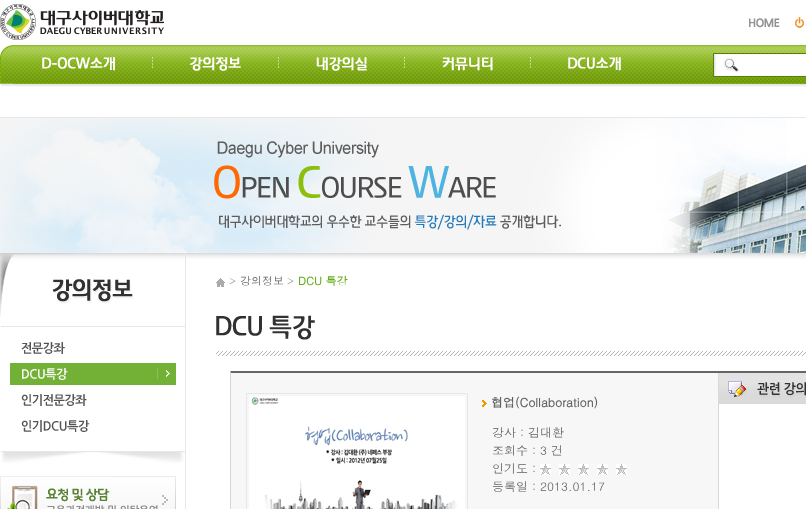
<!DOCTYPE html>
<meta charset="utf-8">
<style>body { margin: 0 } canvas { display: block }</style>
<canvas id="canvas" width="806" height="509"></canvas>
<img id="img1" src="images/1.png" hidden>
<img id="img2" src="images/2.png" hidden>
<img id="img3" src="images/3.png" hidden>
<img id="img4" src="images/4.png" hidden>
<img id="img5" src="images/5.png" hidden>
<img id="img6" src="images/6.png" hidden>
<img id="img7" src="images/7.png" hidden>
<img id="img8" src="images/8.png" hidden>
<img id="img9" src="images/9.png" hidden>
<img id="img10" src="images/10.png" hidden>
<img id="img11" src="images/11.png" hidden>
<img id="img12" src="images/12.png" hidden>
<img id="img13" src="images/13.png" hidden>
<img id="img14" src="images/14.png" hidden>
<img id="img15" src="images/15.png" hidden>
<img id="img16" src="images/16.png" hidden>
<img id="img17" src="images/17.png" hidden>
<img id="img18" src="images/18.png" hidden>
<img id="img19" src="images/19.png" hidden>
<img id="img20" src="images/20.png" hidden>
<img id="img21" src="images/21.png" hidden>
<img id="img22" src="images/22.png" hidden>
<img id="img23" src="images/23.png" hidden>
<img id="img24" src="images/24.png" hidden>
<img id="img25" src="images/25.png" hidden>
<img id="img26" src="images/26.png" hidden>
<img id="img27" src="images/27.png" hidden>
<img id="img28" src="images/28.png" hidden>
<script>
window.onload = function () {
    const canvas = document.getElementById('canvas');
    const context = canvas.getContext('2d');
    context.miterLimit = 4;
    context.fontKerning = 'normal';

    context.fillStyle = 'rgb(255, 255, 255)';
    context.fillRect(0, 0, 806, 509);
    context.drawImage(document.getElementById('img1'), 0, 4, 164, 36);
    context.drawImage(document.getElementById('img2'), 749, 18, 31, 10);
    context.drawImage(document.getElementById('img3'), 795, 17, 9, 11);
    context.drawImage(document.getElementById('img4'), 0, 45, 806, 42);
    context.drawImage(document.getElementById('img5'), 42, 57, 73, 14);
    context.drawImage(document.getElementById('img6'), 152, 57, 1, 11);
    context.drawImage(document.getElementById('img7'), 190, 57, 51, 14);
    context.drawImage(document.getElementById('img8'), 278, 57, 1, 11);
    context.drawImage(document.getElementById('img9'), 316, 57, 51, 14);
    context.drawImage(document.getElementById('img6'), 404, 57, 1, 11);
    context.drawImage(document.getElementById('img10'), 442, 57, 51, 14);
    context.drawImage(document.getElementById('img8'), 530, 57, 1, 11);
    context.drawImage(document.getElementById('img11'), 568, 57, 53, 14);
    context.drawImage(document.getElementById('img12'), 713, 53, 93, 24);
    context.drawImage(document.getElementById('img13'), 186, 253, 620, 6);
    context.fillStyle = 'rgb(231, 231, 231)';
    context.fillRect(0, 117, 806, 1);
    context.drawImage(document.getElementById('img14'), 0, 118, 806, 135);
    context.drawImage(document.getElementById('img15'), 0, 253, 185, 74);
    context.drawImage(document.getElementById('img16'), 21, 342, 44, 12);
    context.drawImage(document.getElementById('img17'), 10, 363, 166, 22);
    context.drawImage(document.getElementById('img18'), 21, 394, 66, 12);
    context.drawImage(document.getElementById('img19'), 21, 420, 69, 12);
    context.drawImage(document.getElementById('img20'), 1, 451, 184, 12);
    context.drawImage(document.getElementById('img21'), 0, 476, 176, 33);
    context.fillRect(185, 253, 1, 256);
    context.drawImage(document.getElementById('img22'), 216, 278, 9, 9);
    context.drawImage(document.getElementById('img23'), 216, 315, 99, 25);
    context.drawImage(document.getElementById('img24'), 216, 351, 590, 5);
    context.fillStyle = 'rgb(247, 247, 247)';
    context.fillRect(231, 373, 487, 136);
    context.fillStyle = 'rgb(102, 102, 102)';
    context.beginPath();
    context.moveTo(230, 371);
    context.lineTo(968, 371);
    context.lineTo(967, 373);
    context.lineTo(231, 373);
    context.closePath();
    context.fill();
    context.fillStyle = 'rgb(215, 215, 215)';
    context.beginPath();
    context.moveTo(230, 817);
    context.lineTo(230, 371);
    context.lineTo(231, 373);
    context.lineTo(231, 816);
    context.closePath();
    context.fill();
    context.strokeStyle = 'rgb(231, 231, 231)';
    context.strokeRect(246.5, 393.5, 221, 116);
    context.drawImage(document.getElementById('img25'), 249, 396, 216, 113);
    context.drawImage(document.getElementById('img26'), 482, 400, 5, 7);
    context.drawImage(document.getElementById('img27'), 540, 464, 11, 11);
    context.drawImage(document.getElementById('img27'), 559, 464, 11, 11);
    context.drawImage(document.getElementById('img27'), 578, 464, 11, 11);
    context.drawImage(document.getElementById('img27'), 597, 464, 11, 11);
    context.drawImage(document.getElementById('img27'), 616, 464, 11, 11);
    context.fillStyle = 'rgb(217, 217, 217)';
    context.fillRect(718, 373, 1, 136);
    context.drawImage(document.getElementById('img28'), 719, 373, 87, 31);
    context.font = '11px Dotum';
    context.fillStyle = 'rgb(159, 159, 159)';
    context.fillText('>', 229, 285);
    context.fillStyle = 'rgb(98, 98, 98)';
    context.fillText('강의정보', 240, 285);
    context.fillStyle = 'rgb(159, 159, 159)';
    context.fillText('>', 287, 285);
    context.font = 'bold 11px Dotum';
    context.fillStyle = 'rgb(99, 173, 27)';
    context.fillText('DCU 특강', 298, 285);
    context.font = 'bold 12px Dotum';
    context.fillStyle = 'rgb(98, 98, 98)';
    context.fillText('협업(Collaboration)', 491, 407);
    context.font = '12px Dotum';
    context.fillText('강사 : 김대환', 492, 437);
    context.fillText('조회수 : 3 건', 492, 455);
    context.fillText('인기도 :', 492, 473);
    context.fillText('등록일 : 2013.01.17', 492, 491);
};
</script>
